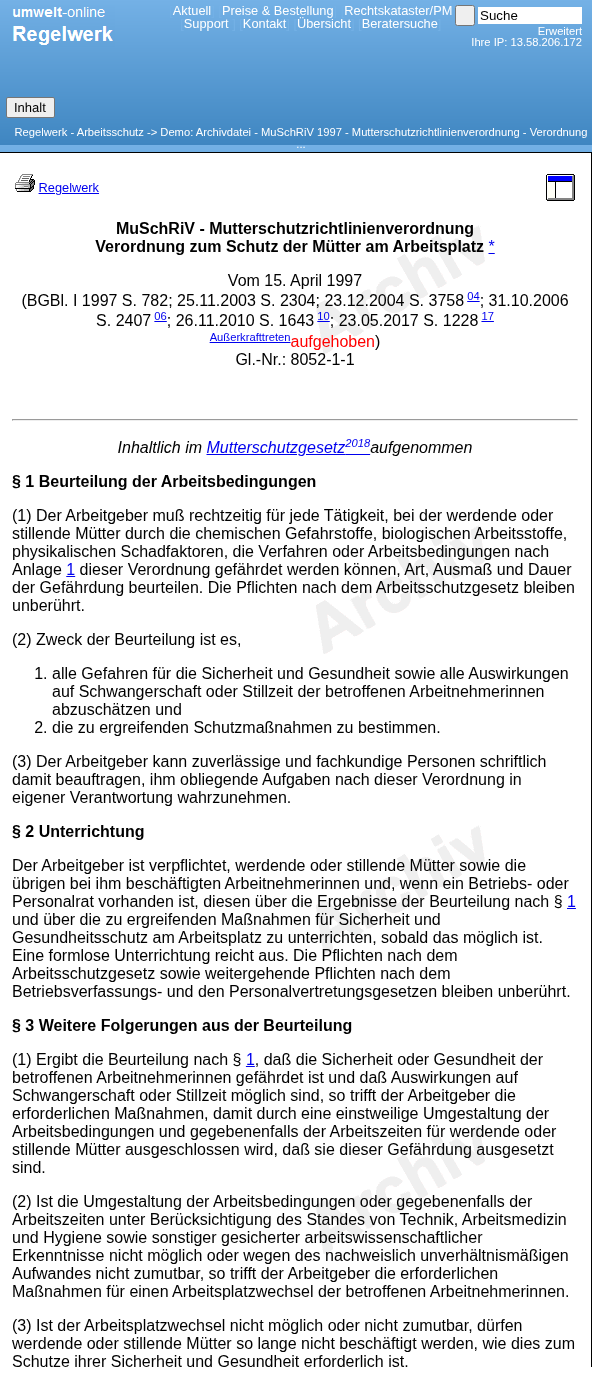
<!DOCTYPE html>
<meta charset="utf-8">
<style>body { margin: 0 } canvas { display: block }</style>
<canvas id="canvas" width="592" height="1380"></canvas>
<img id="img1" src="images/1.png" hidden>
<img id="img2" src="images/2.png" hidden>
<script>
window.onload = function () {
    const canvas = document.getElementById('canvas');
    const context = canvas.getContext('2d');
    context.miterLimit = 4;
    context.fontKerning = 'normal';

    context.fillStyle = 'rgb(255, 255, 255)';
    context.fillRect(0, 0, 592, 1380);
    context.drawImage(document.getElementById('img1'), 0, 0, 592, 152);
    context.fillStyle = 'rgb(239, 239, 239)';
    context.beginPath();
    context.roundRect(6.5, 97.5, 48, 20, 1.5);
    context.fill();
    context.strokeStyle = 'rgb(118, 118, 118)';
    context.stroke();
    context.fillStyle = 'rgb(0, 0, 0)';
    context.fillRect(0, 152, 592, 1);
    context.fillRect(591, 152, 1, 1215);
    context.drawImage(document.getElementById('img2'), 12, 174, 566, 1193);
    context.font = '13px Liberation Sans';
    context.fillText('Inhalt', 14, 112);
};
</script>
